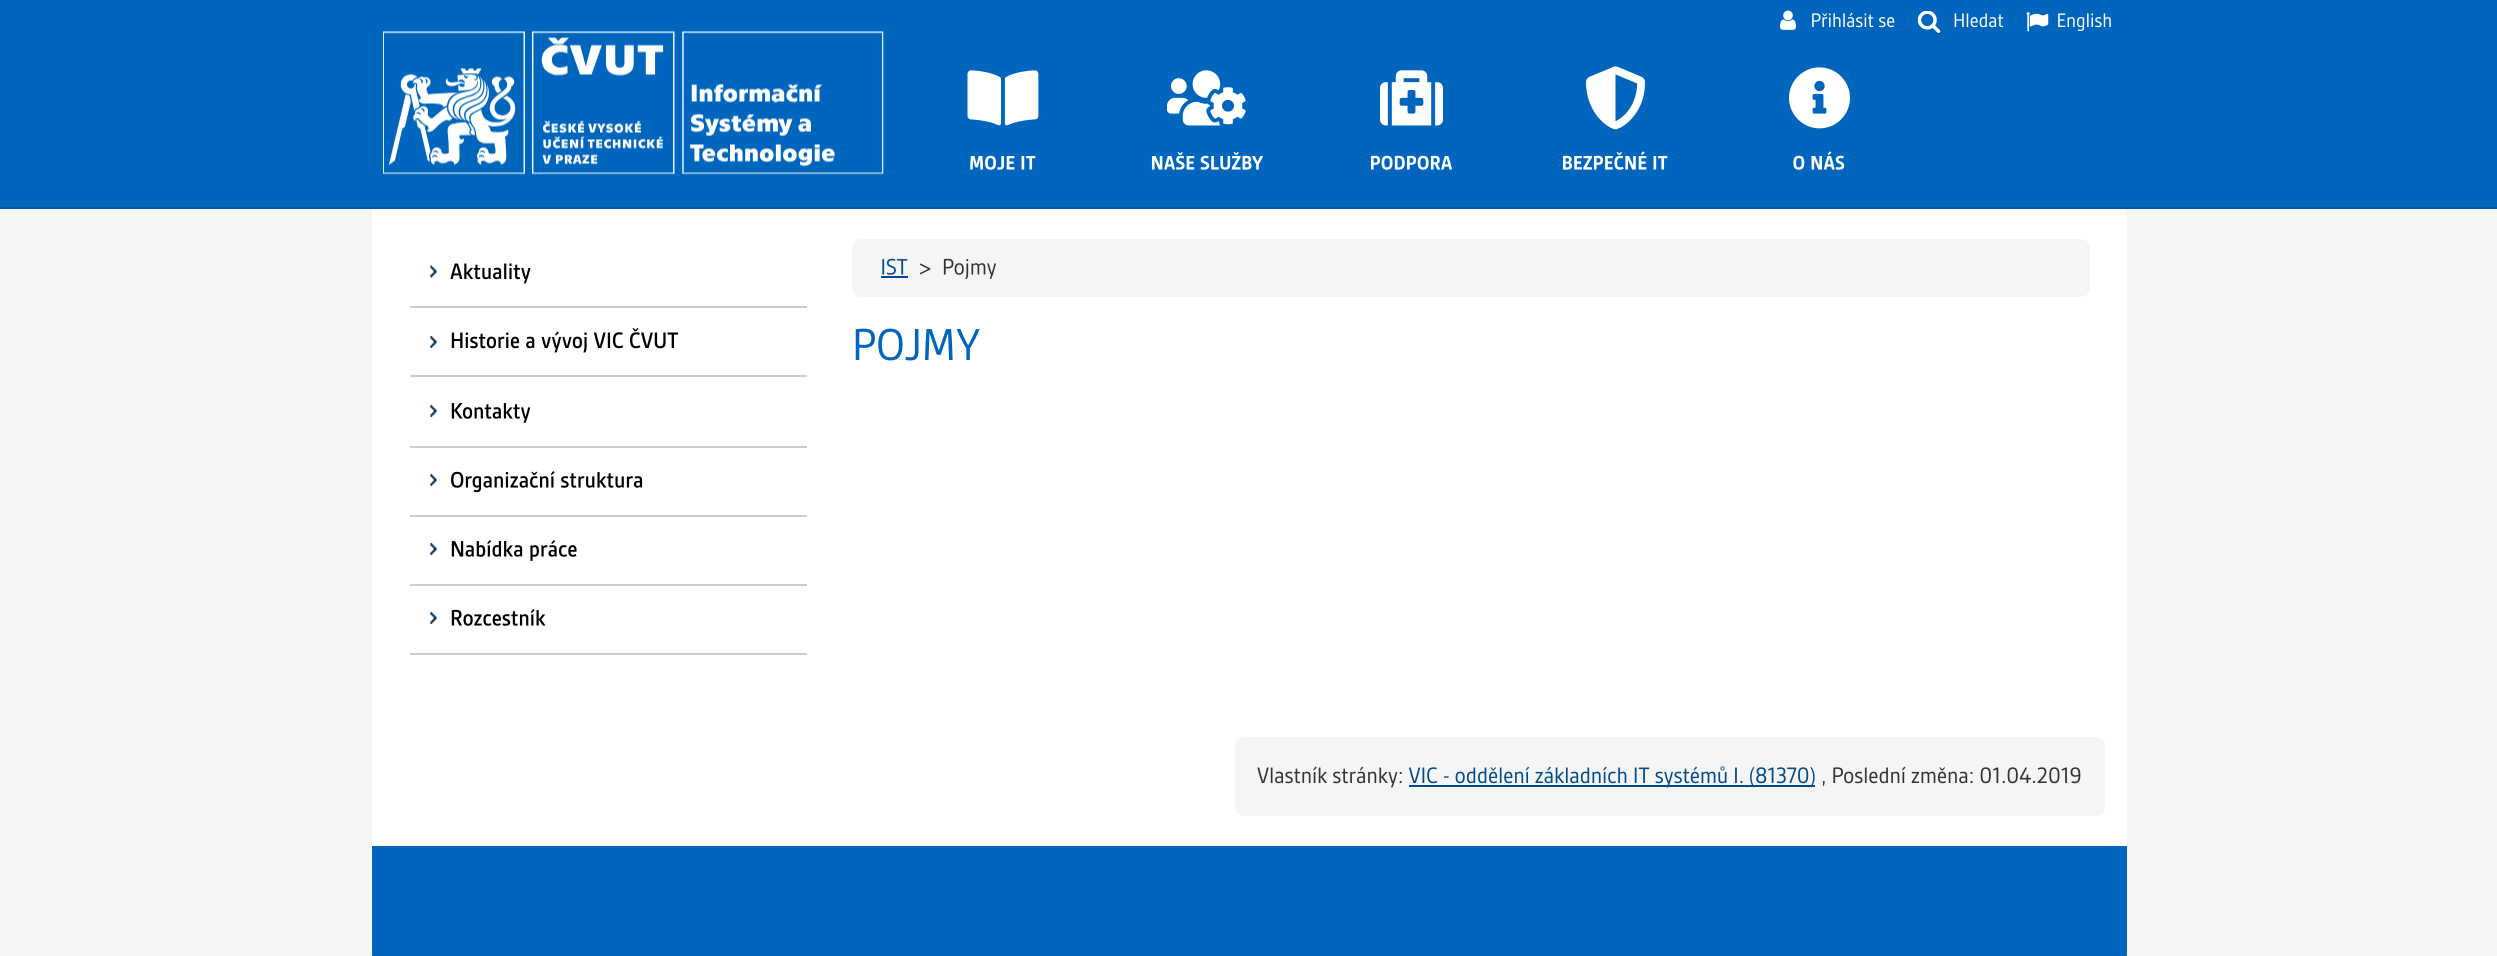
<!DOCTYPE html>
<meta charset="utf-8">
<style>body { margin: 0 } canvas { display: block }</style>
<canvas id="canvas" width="2497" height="956"></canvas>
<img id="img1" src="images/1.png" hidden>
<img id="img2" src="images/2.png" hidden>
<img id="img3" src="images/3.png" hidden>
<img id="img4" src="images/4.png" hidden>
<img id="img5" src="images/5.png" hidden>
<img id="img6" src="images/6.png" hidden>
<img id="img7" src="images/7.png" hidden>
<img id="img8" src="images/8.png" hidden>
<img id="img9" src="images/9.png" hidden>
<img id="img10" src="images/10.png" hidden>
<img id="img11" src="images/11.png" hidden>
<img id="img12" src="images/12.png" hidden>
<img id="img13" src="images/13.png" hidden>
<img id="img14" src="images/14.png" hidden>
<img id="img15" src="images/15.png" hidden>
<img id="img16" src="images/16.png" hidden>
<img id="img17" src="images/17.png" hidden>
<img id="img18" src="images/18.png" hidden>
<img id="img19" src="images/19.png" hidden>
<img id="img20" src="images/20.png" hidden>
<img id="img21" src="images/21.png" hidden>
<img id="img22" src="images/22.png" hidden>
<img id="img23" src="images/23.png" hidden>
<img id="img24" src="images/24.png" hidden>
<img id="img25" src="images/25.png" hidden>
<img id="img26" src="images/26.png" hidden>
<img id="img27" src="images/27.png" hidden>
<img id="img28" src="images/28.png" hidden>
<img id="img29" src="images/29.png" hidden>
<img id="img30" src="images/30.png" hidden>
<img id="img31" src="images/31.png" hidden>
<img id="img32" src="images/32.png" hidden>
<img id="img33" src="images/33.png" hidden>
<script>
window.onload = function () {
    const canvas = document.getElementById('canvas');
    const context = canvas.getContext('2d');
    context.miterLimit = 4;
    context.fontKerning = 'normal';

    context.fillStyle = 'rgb(245, 245, 245)';
    context.fillRect(0, 0, 2497, 956);
    context.fillStyle = 'rgb(0, 101, 189)';
    context.fillRect(0, 0, 2497, 207);
    context.fillStyle = 'rgb(0, 86, 161)';
    context.fillRect(0, 207, 2497, 2);
    context.drawImage(document.getElementById('img1'), 1780, 10, 16, 20);
    context.drawImage(document.getElementById('img2'), 1812, 12, 83, 16);
    context.drawImage(document.getElementById('img3'), 1917, 11, 24, 22);
    context.drawImage(document.getElementById('img4'), 1954, 13, 50, 15);
    context.drawImage(document.getElementById('img5'), 2026, 12, 23, 20);
    context.drawImage(document.getElementById('img6'), 2058, 13, 53, 18);
    context.drawImage(document.getElementById('img7'), 383, 31, 501, 144);
    context.drawImage(document.getElementById('img8'), 967, 70, 72, 56);
    context.drawImage(document.getElementById('img9'), 970, 155, 66, 15);
    context.drawImage(document.getElementById('img10'), 1167, 70, 79, 56);
    context.drawImage(document.getElementById('img11'), 1151, 152, 112, 18);
    context.drawImage(document.getElementById('img12'), 1380, 70, 63, 56);
    context.drawImage(document.getElementById('img13'), 1370, 155, 82, 15);
    context.drawImage(document.getElementById('img14'), 1586, 66, 59, 64);
    context.drawImage(document.getElementById('img15'), 1562, 151, 106, 19);
    context.drawImage(document.getElementById('img16'), 1789, 67, 61, 62);
    context.drawImage(document.getElementById('img17'), 1793, 151, 52, 19);
    context.fillStyle = 'rgb(255, 255, 255)';
    context.fillRect(372, 209, 1755, 637);
    context.drawImage(document.getElementById('img18'), 430, 265, 7, 13);
    context.fillStyle = 'rgb(204, 204, 204)';
    context.fillRect(410, 306, 397, 2);
    context.drawImage(document.getElementById('img19'), 450, 263, 81, 21);
    context.drawImage(document.getElementById('img20'), 430, 336, 7, 12);
    context.fillRect(410, 375, 397, 2);
    context.drawImage(document.getElementById('img21'), 451, 328, 228, 25);
    context.drawImage(document.getElementById('img20'), 430, 405, 7, 12);
    context.fillRect(410, 446, 397, 2);
    context.drawImage(document.getElementById('img22'), 451, 403, 80, 20);
    context.drawImage(document.getElementById('img20'), 430, 474, 7, 12);
    context.fillRect(410, 515, 397, 2);
    context.drawImage(document.getElementById('img23'), 451, 471, 192, 22);
    context.drawImage(document.getElementById('img20'), 430, 543, 7, 12);
    context.fillRect(410, 584, 397, 2);
    context.drawImage(document.getElementById('img24'), 451, 540, 126, 21);
    context.drawImage(document.getElementById('img20'), 430, 612, 7, 12);
    context.fillRect(410, 653, 397, 2);
    context.drawImage(document.getElementById('img25'), 451, 609, 95, 17);
    context.fillStyle = 'rgb(245, 245, 245)';
    context.beginPath();
    context.roundRect(852, 239, 1238, 58, 9);
    context.fill();
    context.drawImage(document.getElementById('img26'), 882, 258, 26, 17);
    context.fillStyle = 'rgb(0, 74, 138)';
    context.fillRect(881, 276, 27, 2);
    context.drawImage(document.getElementById('img27'), 920, 263, 11, 12);
    context.drawImage(document.getElementById('img28'), 943, 258, 53, 21);
    context.drawImage(document.getElementById('img29'), 855, 328, 125, 33);
    context.fillStyle = 'rgb(245, 245, 245)';
    context.beginPath();
    context.roundRect(1235, 737, 870, 79, 9);
    context.fill();
    context.drawImage(document.getElementById('img30'), 1257, 766, 145, 22);
    context.fillStyle = 'rgb(0, 74, 138)';
    context.fillRect(1409, 785, 406, 2);
    context.drawImage(document.getElementById('img31'), 1409, 766, 406, 22);
    context.drawImage(document.getElementById('img32'), 1822, 781, 3, 5);
    context.drawImage(document.getElementById('img33'), 1833, 766, 248, 18);
    context.fillStyle = 'rgb(0, 101, 189)';
    context.beginPath();
    context.moveTo(372, 846);
    context.lineTo(2127, 846);
    context.lineTo(2127, 954);
    context.bezierCurveTo(2127, 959, 2123, 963, 2118, 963);
    context.lineTo(381, 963);
    context.bezierCurveTo(376, 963, 372, 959, 372, 954);
    context.closePath();
    context.fill();
};
</script>
